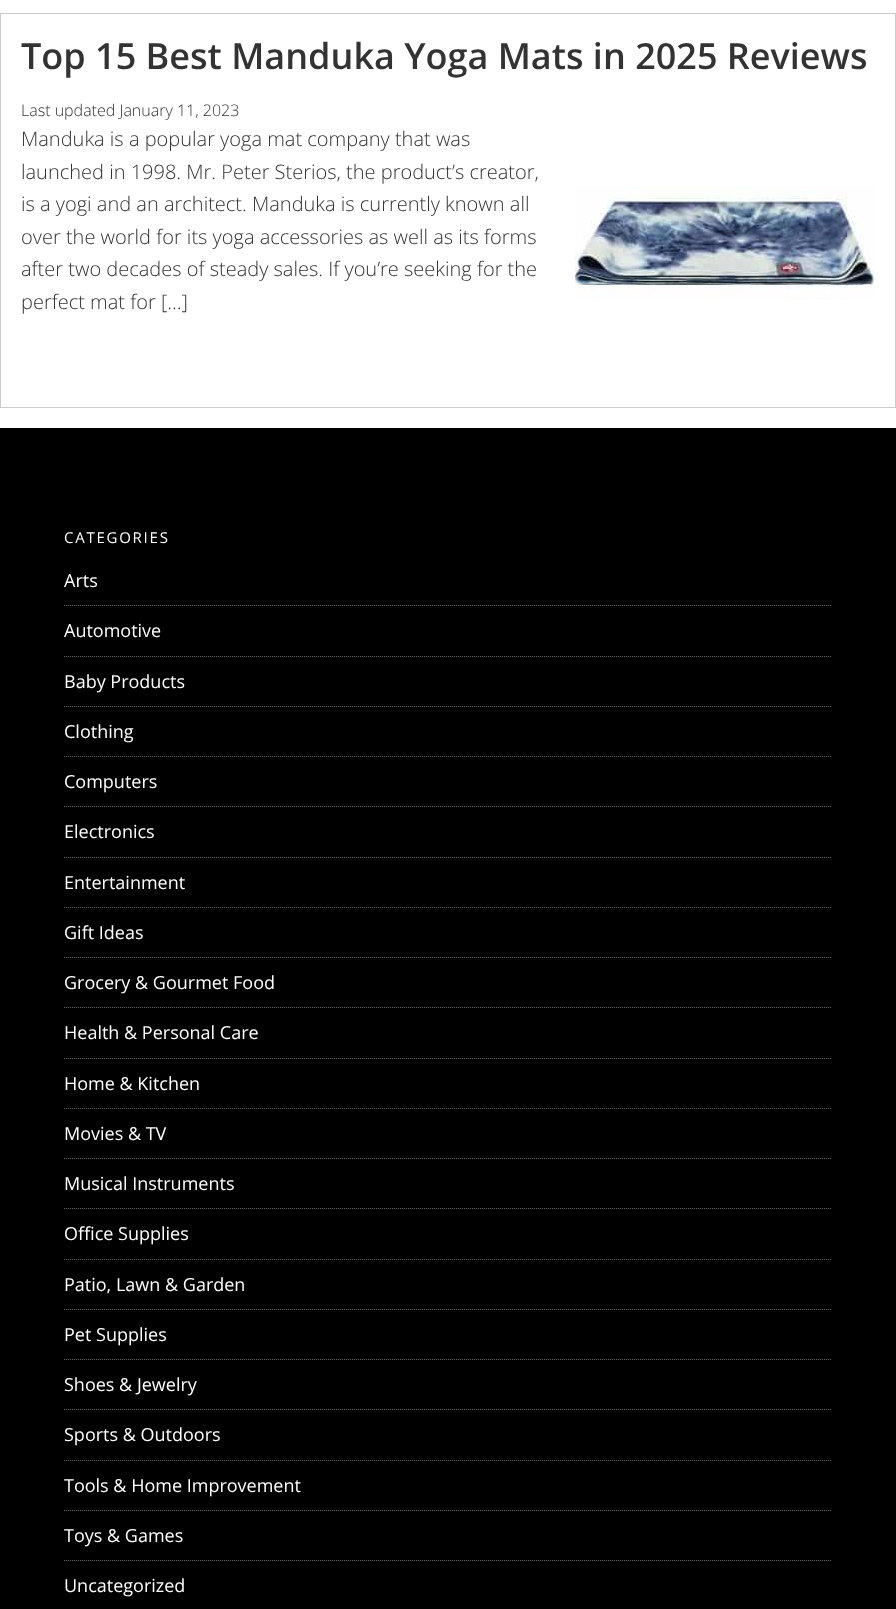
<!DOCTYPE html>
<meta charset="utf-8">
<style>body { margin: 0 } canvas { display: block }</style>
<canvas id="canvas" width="896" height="1609"></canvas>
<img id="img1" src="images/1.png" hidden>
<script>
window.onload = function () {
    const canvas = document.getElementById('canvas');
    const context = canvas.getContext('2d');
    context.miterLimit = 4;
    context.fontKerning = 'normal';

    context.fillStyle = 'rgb(255, 255, 255)';
    context.fillRect(0, 0, 896, 1609);
    context.strokeStyle = 'rgb(204, 204, 204)';
    context.strokeRect(0.5, 13.5, 895, 394);
    context.drawImage(document.getElementById('img1'), 575, 187, 300, 112);
    context.fillStyle = 'rgb(0, 0, 0)';
    context.fillRect(0, 428, 896, 1181);
    context.beginPath();
    context.moveTo(64, 605.5);
    context.lineTo(832, 605.5);
    context.strokeStyle = 'rgb(102, 102, 102)';
    context.setLineDash([1, 1]);
    context.stroke();
    context.beginPath();
    context.moveTo(64, 656.5);
    context.lineTo(832, 656.5);
    context.stroke();
    context.beginPath();
    context.moveTo(64, 706.5);
    context.lineTo(832, 706.5);
    context.stroke();
    context.beginPath();
    context.moveTo(64, 756.5);
    context.lineTo(832, 756.5);
    context.stroke();
    context.beginPath();
    context.moveTo(64, 806.5);
    context.lineTo(832, 806.5);
    context.stroke();
    context.beginPath();
    context.moveTo(64, 857.5);
    context.lineTo(832, 857.5);
    context.stroke();
    context.beginPath();
    context.moveTo(64, 907.5);
    context.lineTo(832, 907.5);
    context.stroke();
    context.beginPath();
    context.moveTo(64, 957.5);
    context.lineTo(832, 957.5);
    context.stroke();
    context.beginPath();
    context.moveTo(64, 1007.5);
    context.lineTo(832, 1007.5);
    context.stroke();
    context.beginPath();
    context.moveTo(64, 1058.5);
    context.lineTo(832, 1058.5);
    context.stroke();
    context.beginPath();
    context.moveTo(64, 1108.5);
    context.lineTo(832, 1108.5);
    context.stroke();
    context.beginPath();
    context.moveTo(64, 1158.5);
    context.lineTo(832, 1158.5);
    context.stroke();
    context.beginPath();
    context.moveTo(64, 1208.5);
    context.lineTo(832, 1208.5);
    context.stroke();
    context.beginPath();
    context.moveTo(64, 1259.5);
    context.lineTo(832, 1259.5);
    context.stroke();
    context.beginPath();
    context.moveTo(64, 1309.5);
    context.lineTo(832, 1309.5);
    context.stroke();
    context.beginPath();
    context.moveTo(64, 1359.5);
    context.lineTo(832, 1359.5);
    context.stroke();
    context.beginPath();
    context.moveTo(64, 1409.5);
    context.lineTo(832, 1409.5);
    context.stroke();
    context.beginPath();
    context.moveTo(64, 1460.5);
    context.lineTo(832, 1460.5);
    context.stroke();
    context.beginPath();
    context.moveTo(64, 1510.5);
    context.lineTo(832, 1510.5);
    context.stroke();
    context.beginPath();
    context.moveTo(64, 1560.5);
    context.lineTo(832, 1560.5);
    context.stroke();
    context.font = '600 36px Open Sans';
    context.fillStyle = 'rgb(51, 51, 51)';
    context.fillText('Top 15 Best Manduka Yoga Mats in 2025 Reviews', 21, 69);
    context.font = '300 16px Open Sans';
    context.fillText('Last updated January 11, 2023', 21, 116);
    context.font = '300 20px Open Sans';
    context.fillText('Manduka is a popular yoga mat company that was', 21, 146);
    context.fillText('launched in 1998. Mr. Peter Sterios, the product’s creator,', 21, 179);
    context.fillText('is a yogi and an architect. Manduka is currently known all', 21, 211);
    context.fillText('over the world for its yoga accessories as well as its forms', 21, 244);
    context.fillText('after two decades of steady sales. If you’re seeking for the', 21, 276);
    context.fillText('perfect mat for […]', 21, 309);
    context.letterSpacing = '1.75px';
    context.font = '15px Open Sans';
    context.fillStyle = 'rgb(255, 255, 255)';
    context.fillText('CATEGORIES', 64, 543);
    context.letterSpacing = '0px';
    context.font = '18px Open Sans';
    context.fillText('Arts', 64, 587);
    context.fillText('Automotive', 64, 637);
    context.fillText('Baby Products', 64, 688);
    context.fillText('Clothing', 64, 738);
    context.fillText('Computers', 64, 788);
    context.fillText('Electronics', 64, 838);
    context.fillText('Entertainment', 64, 889);
    context.fillText('Gift Ideas', 64, 939);
    context.fillText('Grocery & Gourmet Food', 64, 989);
    context.fillText('Health & Personal Care', 64, 1039);
    context.fillText('Home & Kitchen', 64, 1090);
    context.fillText('Movies & TV', 64, 1140);
    context.fillText('Musical Instruments', 64, 1190);
    context.fillText('Office Supplies', 64, 1240);
    context.fillText('Patio, Lawn & Garden', 64, 1291);
    context.fillText('Pet Supplies', 64, 1341);
    context.fillText('Shoes & Jewelry', 64, 1391);
    context.fillText('Sports & Outdoors', 64, 1441);
    context.fillText('Tools & Home Improvement', 64, 1492);
    context.fillText('Toys & Games', 64, 1542);
    context.fillText('Uncategorized', 64, 1592);
};
</script>
